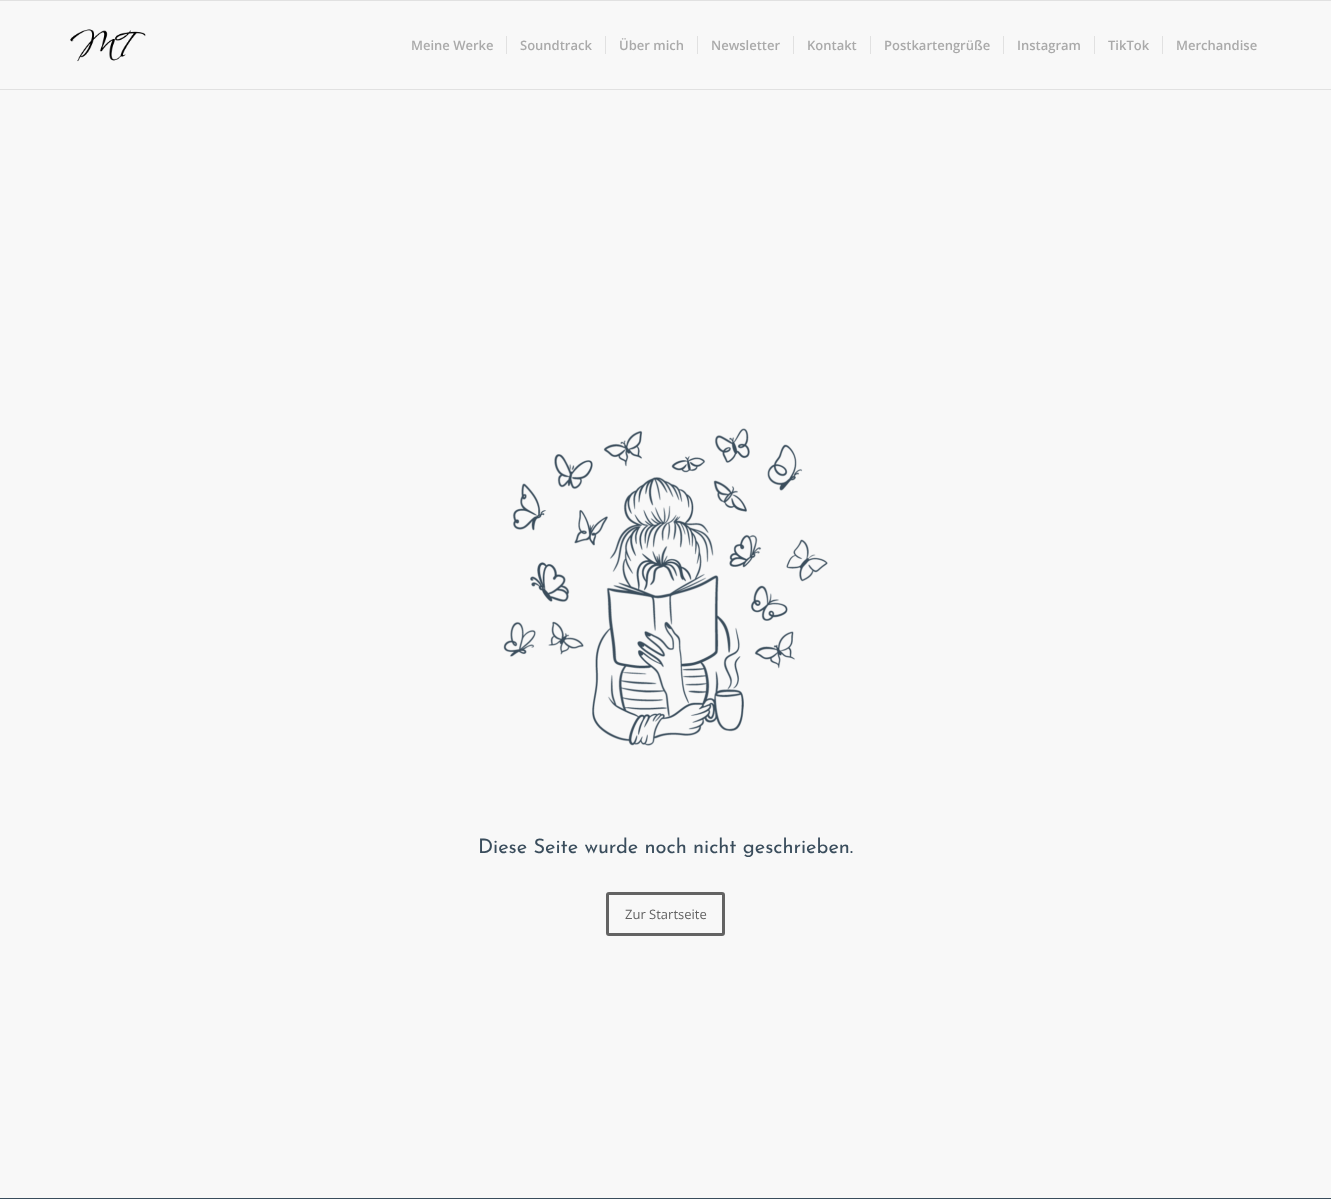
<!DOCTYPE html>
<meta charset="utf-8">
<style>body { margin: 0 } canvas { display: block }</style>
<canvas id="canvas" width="1331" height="1199"></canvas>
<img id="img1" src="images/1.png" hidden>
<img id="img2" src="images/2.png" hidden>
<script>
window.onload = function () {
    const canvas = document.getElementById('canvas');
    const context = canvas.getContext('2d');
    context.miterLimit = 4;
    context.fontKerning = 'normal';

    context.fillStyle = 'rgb(248, 248, 248)';
    context.fillRect(0, 0, 1331, 1199);
    context.fillStyle = 'rgb(225, 225, 225)';
    context.fillRect(0, 0, 1331, 1);
    context.fillRect(0, 89, 1331, 1);
    context.drawImage(document.getElementById('img1'), 70, 29, 76, 33);
    context.fillRect(506, 36, 1, 18);
    context.fillRect(605, 36, 1, 18);
    context.fillRect(697, 36, 1, 18);
    context.fillRect(793, 36, 1, 18);
    context.fillRect(870, 36, 1, 18);
    context.fillRect(1003, 36, 1, 18);
    context.fillRect(1094, 36, 1, 18);
    context.fillRect(1162, 36, 1, 18);
    context.drawImage(document.getElementById('img2'), 503, 428, 325, 318);
    context.beginPath();
    context.roundRect(607.5, 893.5, 116, 41, 1.5);
    context.strokeStyle = 'rgb(99, 99, 99)';
    context.lineWidth = 3;
    context.stroke();
    context.fillStyle = 'rgb(58, 77, 92)';
    context.fillRect(0, 1198, 1331, 1);
    context.font = '600 13px Open Sans';
    context.fillStyle = 'rgb(170, 170, 170)';
    context.fillText('Meine Werke', 411, 50);
    context.fillText('Soundtrack', 520, 50);
    context.fillText('Über mich', 619, 50);
    context.fillText('Newsletter', 711, 50);
    context.fillText('Kontakt', 807, 50);
    context.fillText('Postkartengrüße', 884, 50);
    context.fillText('Instagram', 1017, 50);
    context.fillText('TikTok', 1108, 50);
    context.fillText('Merchandise', 1176, 50);
    context.font = '100 20px Josefin Sans';
    context.fillStyle = 'rgb(58, 77, 92)';
    context.fillText('Diese Seite wurde noch nicht geschrieben.', 478, 853);
    context.font = '13px Open Sans';
    context.fillStyle = 'rgb(99, 99, 99)';
    context.fillText('Zur Startseite', 625, 919);
};
</script>
